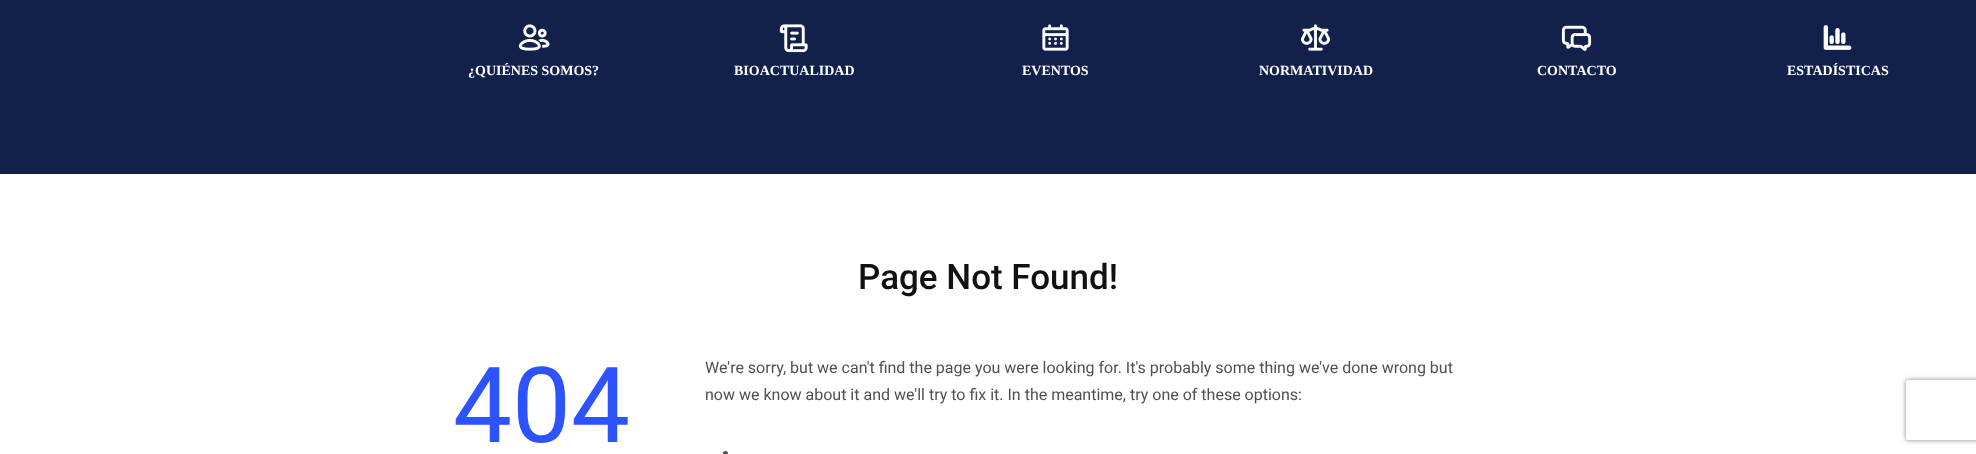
<!DOCTYPE html>
<meta charset="utf-8">
<style>body { margin: 0 } canvas { display: block }</style>
<canvas id="canvas" width="1976" height="454"></canvas>
<img id="img1" src="images/1.png" hidden>
<img id="img2" src="images/2.png" hidden>
<img id="img3" src="images/3.png" hidden>
<img id="img4" src="images/4.png" hidden>
<img id="img5" src="images/5.png" hidden>
<img id="img6" src="images/6.png" hidden>
<script>
window.onload = function () {
    const canvas = document.getElementById('canvas');
    const context = canvas.getContext('2d');
    context.miterLimit = 4;
    context.fontKerning = 'normal';

    context.fillStyle = 'rgb(255, 255, 255)';
    context.fillRect(0, 0, 1976, 454);
    context.fillStyle = 'rgb(18, 32, 76)';
    context.fillRect(0, 0, 1976, 174);
    context.drawImage(document.getElementById('img1'), 518, 24, 32, 27);
    context.drawImage(document.getElementById('img2'), 779, 24, 29, 29);
    context.drawImage(document.getElementById('img3'), 1042, 24, 27, 27);
    context.drawImage(document.getElementById('img4'), 1300, 24, 31, 27);
    context.drawImage(document.getElementById('img5'), 1561, 25, 31, 26);
    context.drawImage(document.getElementById('img6'), 1823, 25, 29, 25);
    context.fillStyle = 'rgb(80, 80, 80)';
    context.beginPath();
    context.arc(725.5, 453.5, 2.5, 0, 2 * Math.PI);
    context.fill();
    context.save();
    context.beginPath();
    context.moveTo(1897, 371);
    context.lineTo(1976, 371);
    context.lineTo(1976, 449);
    context.lineTo(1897, 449);
    context.closePath();
    context.moveTo(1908, 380);
    context.lineTo(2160, 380);
    context.bezierCurveTo(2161, 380, 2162, 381, 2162, 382);
    context.lineTo(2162, 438);
    context.bezierCurveTo(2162, 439, 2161, 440, 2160, 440);
    context.lineTo(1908, 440);
    context.bezierCurveTo(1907, 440, 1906, 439, 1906, 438);
    context.lineTo(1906, 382);
    context.bezierCurveTo(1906, 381, 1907, 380, 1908, 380);
    context.closePath();
    context.clip('evenodd');
    context.fillStyle = 'rgb(128, 128, 128)';
    context.filter = 'blur(2.5px)';
    context.beginPath();
    context.roundRect(1906, 380, 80, 60, 2);
    context.fill();
    context.filter = 'none';
    context.restore();
    context.font = 'bold 14px Liberation Serif';
    context.fillStyle = 'rgb(255, 255, 255)';
    context.fillText('¿QUIÉNES SOMOS?', 468, 75);
    context.fillText('BIOACTUALIDAD', 734, 75);
    context.fillText('EVENTOS', 1022, 75);
    context.fillText('NORMATIVIDAD', 1259, 75);
    context.fillText('CONTACTO', 1537, 75);
    context.fillText('ESTADÍSTICAS', 1787, 75);
    context.font = '500 35px Roboto';
    context.fillStyle = 'rgb(17, 17, 17)';
    context.fillText('Page Not Found!', 858, 289);
    context.font = '105px Roboto';
    context.fillStyle = 'rgb(45, 83, 254)';
    context.fillText('404', 453, 442);
    context.font = '16px Roboto';
    context.fillStyle = 'rgb(80, 80, 80)';
    context.fillText('We\'re sorry, but we can\'t find the page you were looking for. It\'s probably some thing we\'ve done wrong but', 705, 373);
    context.fillText('now we know about it and we\'ll try to fix it. In the meantime, try one of these options:', 705, 400);
};
</script>
